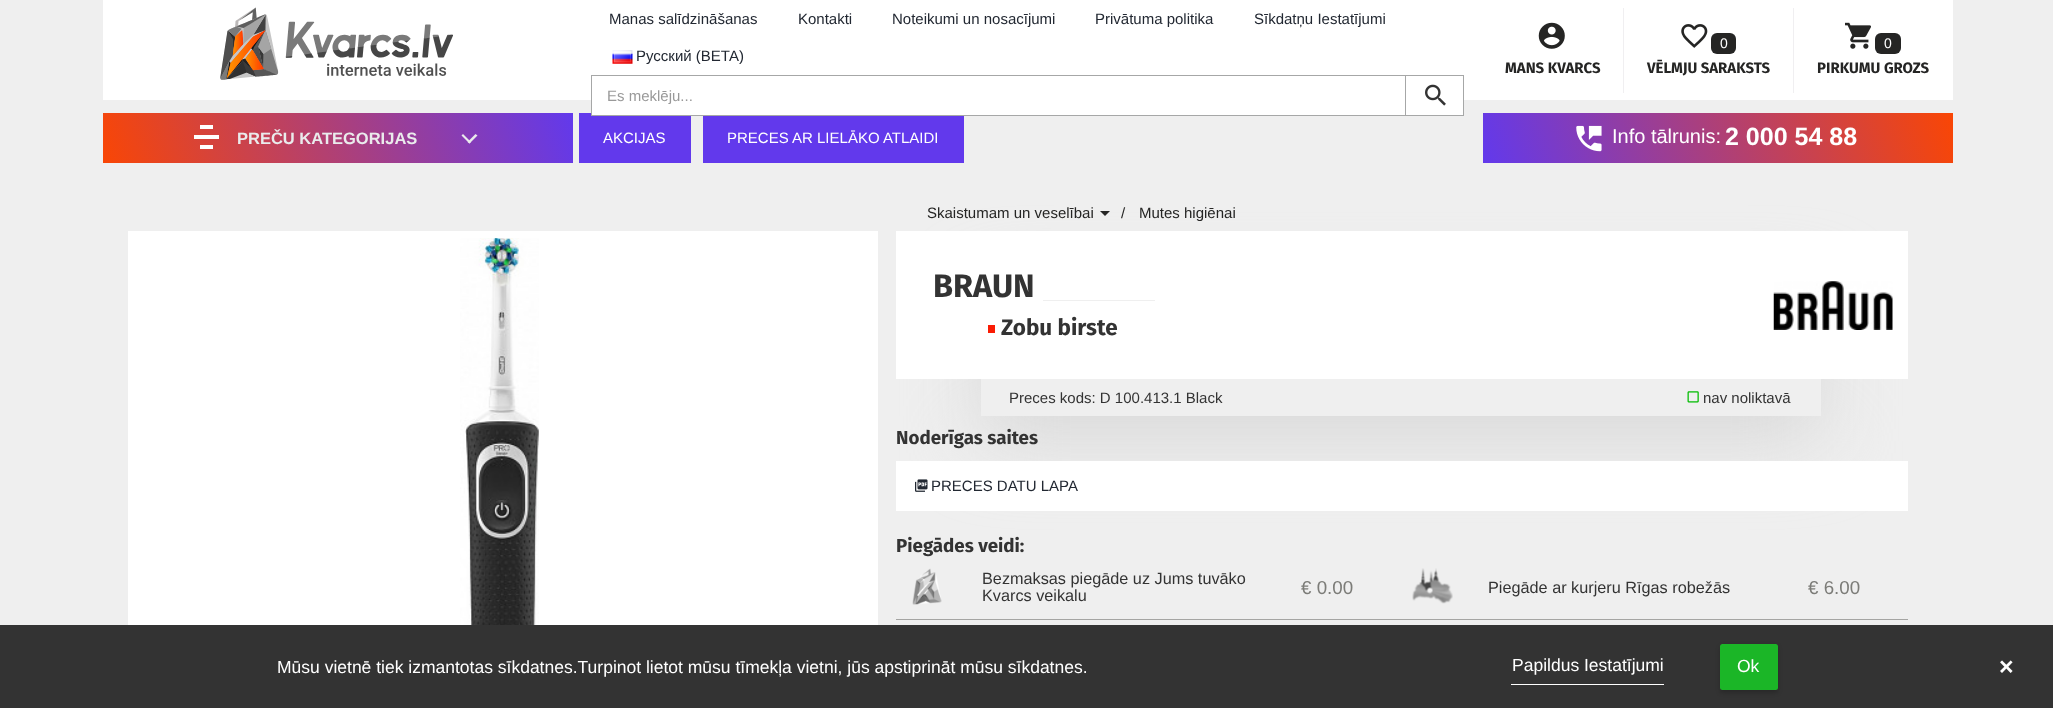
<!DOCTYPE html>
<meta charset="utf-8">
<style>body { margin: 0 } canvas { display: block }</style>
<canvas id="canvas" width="2053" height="708"></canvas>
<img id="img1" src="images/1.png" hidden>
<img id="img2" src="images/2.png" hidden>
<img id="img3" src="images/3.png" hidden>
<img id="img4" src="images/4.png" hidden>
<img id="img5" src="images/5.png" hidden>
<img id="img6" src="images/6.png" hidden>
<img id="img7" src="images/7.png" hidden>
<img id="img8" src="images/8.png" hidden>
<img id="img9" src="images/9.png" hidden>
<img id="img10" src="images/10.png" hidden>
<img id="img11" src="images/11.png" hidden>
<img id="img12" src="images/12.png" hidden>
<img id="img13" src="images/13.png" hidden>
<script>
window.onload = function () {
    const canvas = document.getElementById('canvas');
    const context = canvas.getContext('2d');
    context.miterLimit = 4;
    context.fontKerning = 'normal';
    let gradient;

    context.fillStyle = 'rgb(239, 239, 239)';
    context.fillRect(0, 0, 2053, 708);
    context.fillStyle = 'rgb(255, 255, 255)';
    context.fillRect(103, 0, 1850, 100);
    context.drawImage(document.getElementById('img1'), 220, 7, 233, 73);
    context.drawImage(document.getElementById('img2'), 612, 50, 21, 14);
    context.fillStyle = 'rgb(98, 57, 236)';
    context.fillRect(579, 113, 112, 50);
    context.fillStyle = 'rgb(255, 255, 255)';
    context.fillRect(592, 100, 871, 15);
    context.strokeStyle = 'rgb(166, 167, 167)';
    context.strokeRect(591.5, 75.5, 872, 40);
    context.fillStyle = 'rgb(166, 167, 167)';
    context.fillRect(1405, 75, 1, 41);
    context.drawImage(document.getElementById('img3'), 1425, 84, 21, 22);
    context.drawImage(document.getElementById('img4'), 1538, 22, 27, 27);
    context.fillStyle = 'rgb(240, 239, 241)';
    context.fillRect(1793, 8, 1, 85);
    context.fillRect(1623, 8, 1, 85);
    context.drawImage(document.getElementById('img5'), 1681, 24, 27, 24);
    context.fillStyle = 'rgb(37, 37, 36)';
    context.beginPath();
    context.roundRect(1711, 33, 25, 21, 6);
    context.fill();
    context.drawImage(document.getElementById('img6'), 1845, 22, 26, 27);
    context.beginPath();
    context.roundRect(1875, 33, 26, 21, 6);
    context.fill();
    gradient = context.createLinearGradient(118, 209, 557, 66);
    gradient.addColorStop(0, 'rgb(249, 70, 5)');
    gradient.addColorStop(1, 'rgb(98, 57, 236)');
    context.fillStyle = gradient;
    context.fillRect(103, 113, 470, 50);
    context.fillStyle = 'rgb(255, 255, 255)';
    context.fillRect(200, 125, 13, 4);
    context.fillRect(194, 135, 25, 4);
    context.fillRect(200, 145, 13, 4);
    context.fillStyle = 'rgb(234, 235, 236)';
    context.beginPath();
    context.moveTo(463, 134);
    context.lineTo(471, 142);
    context.lineTo(469.5, 143.5);
    context.lineTo(461.5, 135.5);
    context.closePath();
    context.fill();
    context.beginPath();
    context.moveTo(467.5, 142);
    context.lineTo(475.5, 134);
    context.lineTo(477.5, 135.5);
    context.lineTo(469.5, 143.5);
    context.closePath();
    context.fill();
    context.fillStyle = 'rgb(98, 57, 236)';
    context.fillRect(703, 116, 261, 47);
    gradient = context.createLinearGradient(1498, 209, 1937, 66);
    gradient.addColorStop(0, 'rgb(98, 57, 236)');
    gradient.addColorStop(1, 'rgb(249, 70, 5)');
    context.fillStyle = gradient;
    context.fillRect(1483, 113, 470, 50);
    context.drawImage(document.getElementById('img7'), 1576, 125, 26, 27);
    context.fillStyle = 'rgb(255, 255, 255)';
    context.fillRect(128, 231, 750, 394);
    context.drawImage(document.getElementById('img8'), 460, 238, 79, 387);
    context.fillStyle = 'rgb(37, 37, 36)';
    context.beginPath();
    context.moveTo(1100, 211);
    context.lineTo(1110, 211);
    context.lineTo(1105, 216);
    context.closePath();
    context.fill();
    context.save();
    context.beginPath();
    context.moveTo(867, 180);
    context.lineTo(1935, 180);
    context.lineTo(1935, 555);
    context.lineTo(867, 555);
    context.closePath();
    context.moveTo(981, 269);
    context.lineTo(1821, 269);
    context.lineTo(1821, 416);
    context.lineTo(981, 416);
    context.closePath();
    context.clip('evenodd');
    context.fillStyle = 'rgb(217, 217, 217)';
    context.filter = 'blur(37.5px)';
    context.beginPath();
    context.rect(981, 294, 840, 147);
    context.fill();
    context.filter = 'none';
    context.restore();
    context.fillStyle = 'rgb(255, 255, 255)';
    context.fillRect(896, 231, 1012, 148);
    context.fillStyle = 'rgb(239, 239, 239)';
    context.fillRect(1043, 300, 112, 1);
    context.fillStyle = 'rgb(250, 28, 4)';
    context.fillRect(988, 325, 7, 8);
    context.drawImage(document.getElementById('img9'), 1773, 281, 120, 49);
    context.drawImage(document.getElementById('img10'), 1687, 391, 12, 12);
    context.fillStyle = 'rgb(255, 255, 255)';
    context.fillRect(896, 461, 1012, 50);
    context.drawImage(document.getElementById('img11'), 915, 479, 13, 13);
    context.fillStyle = 'rgb(165, 165, 163)';
    context.fillRect(896, 619, 1012, 1);
    context.drawImage(document.getElementById('img12'), 912, 568, 30, 37);
    context.drawImage(document.getElementById('img13'), 1412, 568, 41, 36);
    context.fillStyle = 'rgb(51, 51, 51)';
    context.fillRect(0, 625, 2053, 83);
    context.fillStyle = 'rgb(255, 255, 255)';
    context.fillRect(1511, 684, 153, 1);
    context.fillStyle = 'rgba(0, 0, 0, 0.2)';
    context.filter = 'blur(2px)';
    context.beginPath();
    context.roundRect(1720, 646, 58, 47, 2.5);
    context.fill();
    context.filter = 'none';
    context.fillStyle = 'rgb(27, 182, 39)';
    context.beginPath();
    context.roundRect(1720, 644, 58, 46, 2.5);
    context.fill();
    context.font = '15px Liberation Sans';
    context.fillStyle = 'rgb(34, 40, 50)';
    context.fillText('Manas salīdzināšanas', 609, 24);
    context.fillText('Kontakti', 798, 24);
    context.fillText('Noteikumi un nosacījumi', 892, 24);
    context.fillText('Privātuma politika', 1095, 24);
    context.fillText('Sīkdatņu Iestatījumi', 1254, 24);
    context.fillText('Русский (BETA)', 636, 61);
    context.fillStyle = 'rgb(153, 153, 153)';
    context.fillText('Es meklēju...', 607, 101);
    context.font = 'bold 15px Fira Sans';
    context.fillStyle = 'rgb(37, 37, 36)';
    context.fillText('MANS KVARCS', 1505, 73);
    context.font = '14px Liberation Sans';
    context.fillStyle = 'rgb(255, 255, 255)';
    context.fillText('0', 1720, 48);
    context.font = 'bold 15px Fira Sans';
    context.fillStyle = 'rgb(37, 37, 36)';
    context.fillText('VĒLMJU SARAKSTS', 1647, 73);
    context.font = '14px Liberation Sans';
    context.fillStyle = 'rgb(255, 255, 255)';
    context.fillText('0', 1884, 48);
    context.font = 'bold 15px Fira Sans';
    context.fillStyle = 'rgb(37, 37, 36)';
    context.fillText('PIRKUMU GROZS', 1817, 73);
    context.font = 'bold 16.5px Liberation Sans';
    context.fillStyle = 'rgb(234, 235, 236)';
    context.fillText('PREČU KATEGORIJAS', 237, 144);
    context.font = '15px Liberation Sans';
    context.fillStyle = 'rgb(255, 255, 255)';
    context.fillText('AKCIJAS', 603, 143);
    context.fillText('PRECES AR LIELĀKO ATLAIDI', 727, 143);
    context.font = '20px Liberation Sans';
    context.fillText('Info tālrunis:', 1612, 143);
    context.font = 'bold 25px Liberation Sans';
    context.fillText('2 000 54 88', 1725, 145);
    context.font = '15px Liberation Sans';
    context.fillStyle = 'rgb(37, 37, 36)';
    context.fillText('Skaistumam un veselībai', 927, 218);
    context.fillText('/', 1121, 218);
    context.fillText('Mutes higiēnai', 1139, 218);
    context.font = 'bold 32.5px Fira Sans';
    context.fillStyle = 'rgb(51, 51, 51)';
    context.fillText('BRAUN', 933, 297);
    context.font = 'bold 22.5px Fira Sans';
    context.fillText('Zobu birste', 1001, 335);
    context.font = '15px Liberation Sans';
    context.fillText('Preces kods: D 100.413.1 Black', 1009, 403);
    context.fillText('nav noliktavā', 1703, 403);
    context.font = 'bold 18.75px Fira Sans';
    context.fillText('Noderīgas saites', 896, 444);
    context.font = '15px Liberation Sans';
    context.fillStyle = 'rgb(34, 40, 50)';
    context.fillText('PRECES DATU LAPA', 931, 491);
    context.font = 'bold 18.75px Fira Sans';
    context.fillStyle = 'rgb(51, 51, 51)';
    context.fillText('Piegādes veidi:', 896, 552);
    context.font = '16.25px Liberation Sans';
    context.fillText('Bezmaksas piegāde uz Jums tuvāko', 982, 584);
    context.fillText('Kvarcs veikalu', 982, 601);
    context.font = '18.75px Liberation Sans';
    context.fillStyle = 'rgb(124, 124, 120)';
    context.fillText('€ 0.00', 1301, 594);
    context.font = '16.25px Liberation Sans';
    context.fillStyle = 'rgb(51, 51, 51)';
    context.fillText('Piegāde ar kurjeru Rīgas robežās', 1488, 593);
    context.font = '18.75px Liberation Sans';
    context.fillStyle = 'rgb(124, 124, 120)';
    context.fillText('€ 6.00', 1808, 594);
    context.font = '17.5px Liberation Sans';
    context.fillStyle = 'rgb(255, 255, 255)';
    context.fillText('Mūsu vietnē tiek izmantotas sīkdatnes.Turpinot lietot mūsu tīmekļa vietni, jūs apstiprināt mūsu sīkdatnes.', 277, 673);
    context.fillText('Papildus Iestatījumi', 1512, 671);
    context.fillText('Ok', 1737, 672);
    context.font = 'bold 25px Liberation Sans';
    context.fillText('×', 1999, 675);
};
</script>
